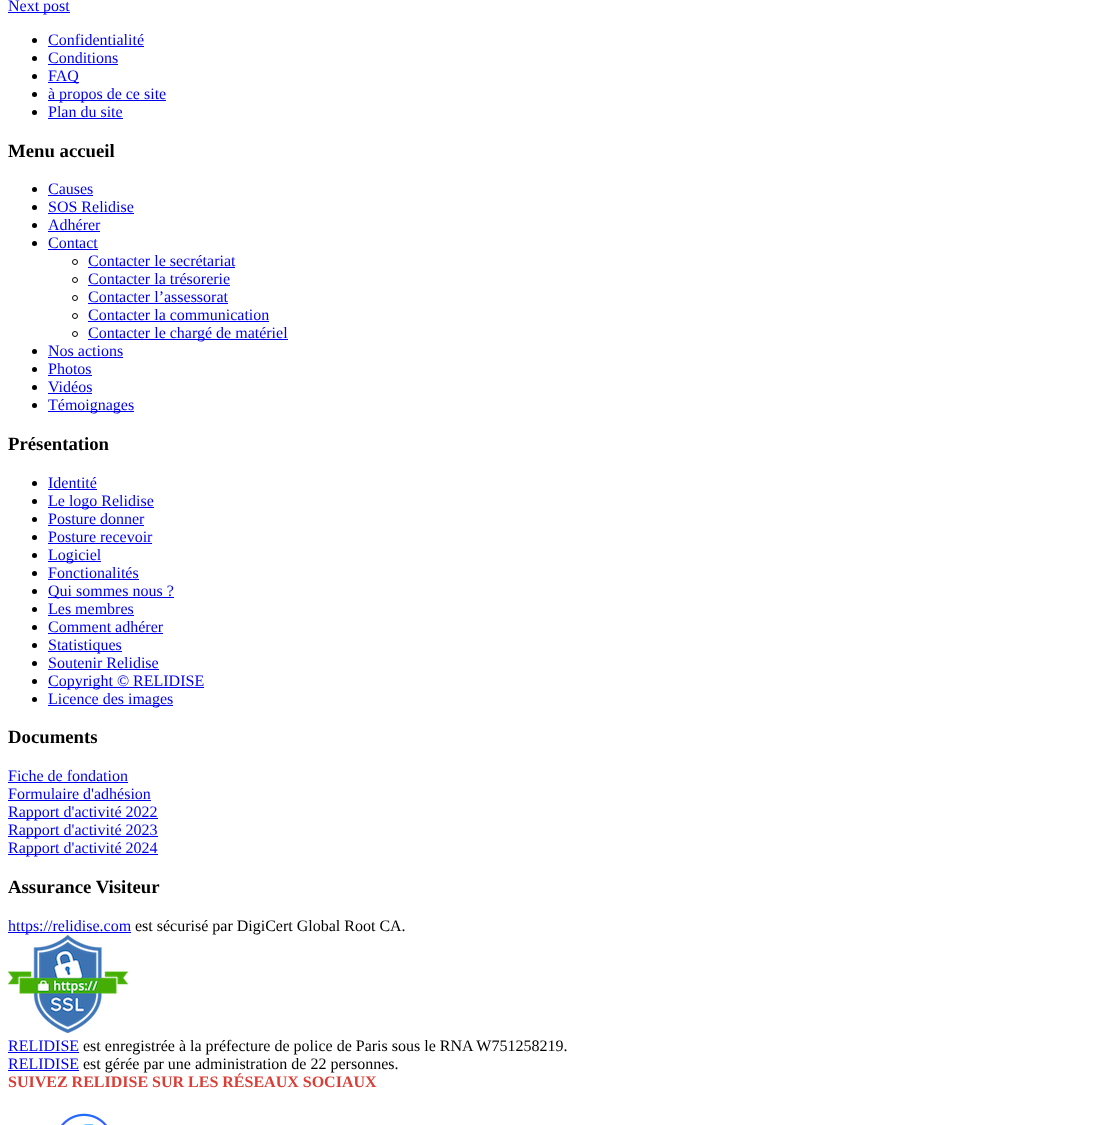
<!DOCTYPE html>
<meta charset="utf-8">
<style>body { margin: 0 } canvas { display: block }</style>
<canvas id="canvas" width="1112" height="1125"></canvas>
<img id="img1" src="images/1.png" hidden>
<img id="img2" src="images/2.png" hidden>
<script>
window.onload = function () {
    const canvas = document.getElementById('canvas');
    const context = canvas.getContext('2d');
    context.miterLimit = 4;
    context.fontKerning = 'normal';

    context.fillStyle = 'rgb(255, 255, 255)';
    context.fillRect(0, 0, 1112, 1125);
    context.fillStyle = 'rgb(0, 0, 238)';
    context.fillRect(8, 12, 62, 1);
    context.fillStyle = 'rgb(0, 0, 0)';
    context.beginPath();
    context.arc(34.5, 40.5, 2.5, 0, 2 * Math.PI);
    context.fill();
    context.fillStyle = 'rgb(0, 0, 238)';
    context.fillRect(48, 46, 96, 1);
    context.fillStyle = 'rgb(0, 0, 0)';
    context.beginPath();
    context.arc(34.5, 58.5, 2.5, 0, 2 * Math.PI);
    context.fill();
    context.fillStyle = 'rgb(0, 0, 238)';
    context.fillRect(48, 64, 70, 1);
    context.fillStyle = 'rgb(0, 0, 0)';
    context.beginPath();
    context.arc(34.5, 76.5, 2.5, 0, 2 * Math.PI);
    context.fill();
    context.fillStyle = 'rgb(0, 0, 238)';
    context.fillRect(48, 82, 31, 1);
    context.fillStyle = 'rgb(0, 0, 0)';
    context.beginPath();
    context.arc(34.5, 94.5, 2.5, 0, 2 * Math.PI);
    context.fill();
    context.fillStyle = 'rgb(0, 0, 238)';
    context.fillRect(48, 100, 118, 1);
    context.fillStyle = 'rgb(0, 0, 0)';
    context.beginPath();
    context.arc(34.5, 112.5, 2.5, 0, 2 * Math.PI);
    context.fill();
    context.fillStyle = 'rgb(0, 0, 238)';
    context.fillRect(48, 118, 75, 1);
    context.fillStyle = 'rgb(0, 0, 0)';
    context.beginPath();
    context.arc(34.5, 189.5, 2.5, 0, 2 * Math.PI);
    context.fill();
    context.fillStyle = 'rgb(0, 0, 238)';
    context.fillRect(48, 195, 45, 1);
    context.fillStyle = 'rgb(0, 0, 0)';
    context.beginPath();
    context.arc(34.5, 207.5, 2.5, 0, 2 * Math.PI);
    context.fill();
    context.fillStyle = 'rgb(0, 0, 238)';
    context.fillRect(48, 213, 86, 1);
    context.fillStyle = 'rgb(0, 0, 0)';
    context.beginPath();
    context.arc(34.5, 225.5, 2.5, 0, 2 * Math.PI);
    context.fill();
    context.fillStyle = 'rgb(0, 0, 238)';
    context.fillRect(48, 231, 52, 1);
    context.fillStyle = 'rgb(0, 0, 0)';
    context.beginPath();
    context.arc(34.5, 243.5, 2.5, 0, 2 * Math.PI);
    context.fill();
    context.fillStyle = 'rgb(0, 0, 238)';
    context.fillRect(48, 249, 50, 1);
    context.beginPath();
    context.arc(75, 262, 2.5, 0, 2 * Math.PI);
    context.strokeStyle = 'rgb(0, 0, 0)';
    context.stroke();
    context.fillRect(88, 267, 147, 1);
    context.beginPath();
    context.arc(75, 280, 2.5, 0, 2 * Math.PI);
    context.stroke();
    context.fillRect(88, 285, 142, 1);
    context.beginPath();
    context.arc(75, 298, 2.5, 0, 2 * Math.PI);
    context.stroke();
    context.fillRect(88, 303, 140, 1);
    context.beginPath();
    context.arc(75, 316, 2.5, 0, 2 * Math.PI);
    context.stroke();
    context.fillRect(88, 321, 181, 1);
    context.beginPath();
    context.arc(75, 334, 2.5, 0, 2 * Math.PI);
    context.stroke();
    context.fillRect(88, 339, 200, 1);
    context.fillStyle = 'rgb(0, 0, 0)';
    context.beginPath();
    context.arc(34.5, 351.5, 2.5, 0, 2 * Math.PI);
    context.fill();
    context.fillStyle = 'rgb(0, 0, 238)';
    context.fillRect(48, 357, 75, 1);
    context.fillStyle = 'rgb(0, 0, 0)';
    context.beginPath();
    context.arc(34.5, 369.5, 2.5, 0, 2 * Math.PI);
    context.fill();
    context.fillStyle = 'rgb(0, 0, 238)';
    context.fillRect(48, 375, 44, 1);
    context.fillStyle = 'rgb(0, 0, 0)';
    context.beginPath();
    context.arc(34.5, 387.5, 2.5, 0, 2 * Math.PI);
    context.fill();
    context.fillStyle = 'rgb(0, 0, 238)';
    context.fillRect(48, 393, 44, 1);
    context.fillStyle = 'rgb(0, 0, 0)';
    context.beginPath();
    context.arc(34.5, 405.5, 2.5, 0, 2 * Math.PI);
    context.fill();
    context.fillStyle = 'rgb(0, 0, 238)';
    context.fillRect(48, 411, 86, 1);
    context.fillStyle = 'rgb(0, 0, 0)';
    context.beginPath();
    context.arc(34.5, 483.5, 2.5, 0, 2 * Math.PI);
    context.fill();
    context.fillStyle = 'rgb(0, 0, 238)';
    context.fillRect(48, 489, 49, 1);
    context.fillStyle = 'rgb(0, 0, 0)';
    context.beginPath();
    context.arc(34.5, 501.5, 2.5, 0, 2 * Math.PI);
    context.fill();
    context.fillStyle = 'rgb(0, 0, 238)';
    context.fillRect(48, 507, 106, 1);
    context.fillStyle = 'rgb(0, 0, 0)';
    context.beginPath();
    context.arc(34.5, 519.5, 2.5, 0, 2 * Math.PI);
    context.fill();
    context.fillStyle = 'rgb(0, 0, 238)';
    context.fillRect(48, 525, 96, 1);
    context.fillStyle = 'rgb(0, 0, 0)';
    context.beginPath();
    context.arc(34.5, 537.5, 2.5, 0, 2 * Math.PI);
    context.fill();
    context.fillStyle = 'rgb(0, 0, 238)';
    context.fillRect(48, 543, 104, 1);
    context.fillStyle = 'rgb(0, 0, 0)';
    context.beginPath();
    context.arc(34.5, 555.5, 2.5, 0, 2 * Math.PI);
    context.fill();
    context.fillStyle = 'rgb(0, 0, 238)';
    context.fillRect(48, 561, 53, 1);
    context.fillStyle = 'rgb(0, 0, 0)';
    context.beginPath();
    context.arc(34.5, 573.5, 2.5, 0, 2 * Math.PI);
    context.fill();
    context.fillStyle = 'rgb(0, 0, 238)';
    context.fillRect(48, 579, 91, 1);
    context.fillStyle = 'rgb(0, 0, 0)';
    context.beginPath();
    context.arc(34.5, 591.5, 2.5, 0, 2 * Math.PI);
    context.fill();
    context.fillStyle = 'rgb(0, 0, 238)';
    context.fillRect(48, 597, 126, 1);
    context.fillStyle = 'rgb(0, 0, 0)';
    context.beginPath();
    context.arc(34.5, 609.5, 2.5, 0, 2 * Math.PI);
    context.fill();
    context.fillStyle = 'rgb(0, 0, 238)';
    context.fillRect(48, 615, 86, 1);
    context.fillStyle = 'rgb(0, 0, 0)';
    context.beginPath();
    context.arc(34.5, 627.5, 2.5, 0, 2 * Math.PI);
    context.fill();
    context.fillStyle = 'rgb(0, 0, 238)';
    context.fillRect(48, 633, 115, 1);
    context.fillStyle = 'rgb(0, 0, 0)';
    context.beginPath();
    context.arc(34.5, 645.5, 2.5, 0, 2 * Math.PI);
    context.fill();
    context.fillStyle = 'rgb(0, 0, 238)';
    context.fillRect(48, 651, 74, 1);
    context.fillStyle = 'rgb(0, 0, 0)';
    context.beginPath();
    context.arc(34.5, 663.5, 2.5, 0, 2 * Math.PI);
    context.fill();
    context.fillStyle = 'rgb(0, 0, 238)';
    context.fillRect(48, 669, 111, 1);
    context.fillStyle = 'rgb(0, 0, 0)';
    context.beginPath();
    context.arc(34.5, 681.5, 2.5, 0, 2 * Math.PI);
    context.fill();
    context.fillStyle = 'rgb(0, 0, 238)';
    context.fillRect(48, 687, 156, 1);
    context.fillStyle = 'rgb(0, 0, 0)';
    context.beginPath();
    context.arc(34.5, 699.5, 2.5, 0, 2 * Math.PI);
    context.fill();
    context.fillStyle = 'rgb(0, 0, 238)';
    context.fillRect(48, 705, 125, 1);
    context.fillRect(8, 782, 120, 1);
    context.fillRect(8, 800, 143, 1);
    context.fillRect(8, 818, 150, 1);
    context.fillRect(8, 836, 150, 1);
    context.fillRect(8, 854, 150, 1);
    context.fillRect(8, 932, 123, 1);
    context.drawImage(document.getElementById('img1'), 8, 935, 120, 98);
    context.fillRect(8, 1052, 71, 1);
    context.fillRect(8, 1070, 71, 1);
    context.drawImage(document.getElementById('img2'), 61, 1113, 46, 12);
    context.font = '16px Liberation Serif';
    context.fillText('Next post', 8, 11);
    context.fillText('Confidentialité', 48, 45);
    context.fillText('Conditions', 48, 63);
    context.fillText('FAQ', 48, 81);
    context.fillText('à propos de ce site', 48, 99);
    context.fillText('Plan du site', 48, 117);
    context.font = 'bold 18.75px Liberation Serif';
    context.fillStyle = 'rgb(0, 0, 0)';
    context.fillText('Menu accueil', 8, 157);
    context.font = '16px Liberation Serif';
    context.fillStyle = 'rgb(0, 0, 238)';
    context.fillText('Causes', 48, 194);
    context.fillText('SOS Relidise', 48, 212);
    context.fillText('Adhérer', 48, 230);
    context.fillText('Contact', 48, 248);
    context.fillText('Contacter le secrétariat', 88, 266);
    context.fillText('Contacter la trésorerie', 88, 284);
    context.fillText('Contacter l’assessorat', 88, 302);
    context.fillText('Contacter la communication', 88, 320);
    context.fillText('Contacter le chargé de matériel', 88, 338);
    context.fillText('Nos actions', 48, 356);
    context.fillText('Photos', 48, 374);
    context.fillText('Vidéos', 48, 392);
    context.fillText('Témoignages', 48, 410);
    context.font = 'bold 18.75px Liberation Serif';
    context.fillStyle = 'rgb(0, 0, 0)';
    context.fillText('Présentation', 8, 450);
    context.font = '16px Liberation Serif';
    context.fillStyle = 'rgb(0, 0, 238)';
    context.fillText('Identité', 48, 488);
    context.fillText('Le logo Relidise', 48, 506);
    context.fillText('Posture donner', 48, 524);
    context.fillText('Posture recevoir', 48, 542);
    context.fillText('Logiciel', 48, 560);
    context.fillText('Fonctionalités', 48, 578);
    context.fillText('Qui sommes nous ?', 48, 596);
    context.fillText('Les membres', 48, 614);
    context.fillText('Comment adhérer', 48, 632);
    context.fillText('Statistiques', 48, 650);
    context.fillText('Soutenir Relidise', 48, 668);
    context.fillText('Copyright © RELIDISE', 48, 686);
    context.fillText('Licence des images', 48, 704);
    context.font = 'bold 18.75px Liberation Serif';
    context.fillStyle = 'rgb(0, 0, 0)';
    context.fillText('Documents', 8, 743);
    context.font = '16px Liberation Serif';
    context.fillStyle = 'rgb(0, 0, 238)';
    context.fillText('Fiche de fondation', 8, 781);
    context.fillText('Formulaire d\'adhésion', 8, 799);
    context.fillText('Rapport d\'activité 2022', 8, 817);
    context.fillText('Rapport d\'activité 2023', 8, 835);
    context.fillText('Rapport d\'activité 2024', 8, 853);
    context.font = 'bold 18.75px Liberation Serif';
    context.fillStyle = 'rgb(0, 0, 0)';
    context.fillText('Assurance Visiteur', 8, 893);
    context.font = '16px Liberation Serif';
    context.fillStyle = 'rgb(0, 0, 238)';
    context.fillText('https://relidise.com', 8, 931);
    context.fillStyle = 'rgb(0, 0, 0)';
    context.fillText('est sécurisé par DigiCert Global Root CA.', 135, 931);
    context.fillStyle = 'rgb(0, 0, 238)';
    context.fillText('RELIDISE', 8, 1051);
    context.fillStyle = 'rgb(0, 0, 0)';
    context.fillText('est enregistrée à la préfecture de police de Paris sous le RNA W751258219.', 83, 1051);
    context.fillStyle = 'rgb(0, 0, 238)';
    context.fillText('RELIDISE', 8, 1069);
    context.fillStyle = 'rgb(0, 0, 0)';
    context.fillText('est gérée par une administration de 22 personnes.', 83, 1069);
    context.font = 'bold 16px Liberation Serif';
    context.fillStyle = 'rgb(217, 62, 55)';
    context.fillText('SUIVEZ RELIDISE SUR LES RÉSEAUX SOCIAUX', 8, 1087);
};
</script>
